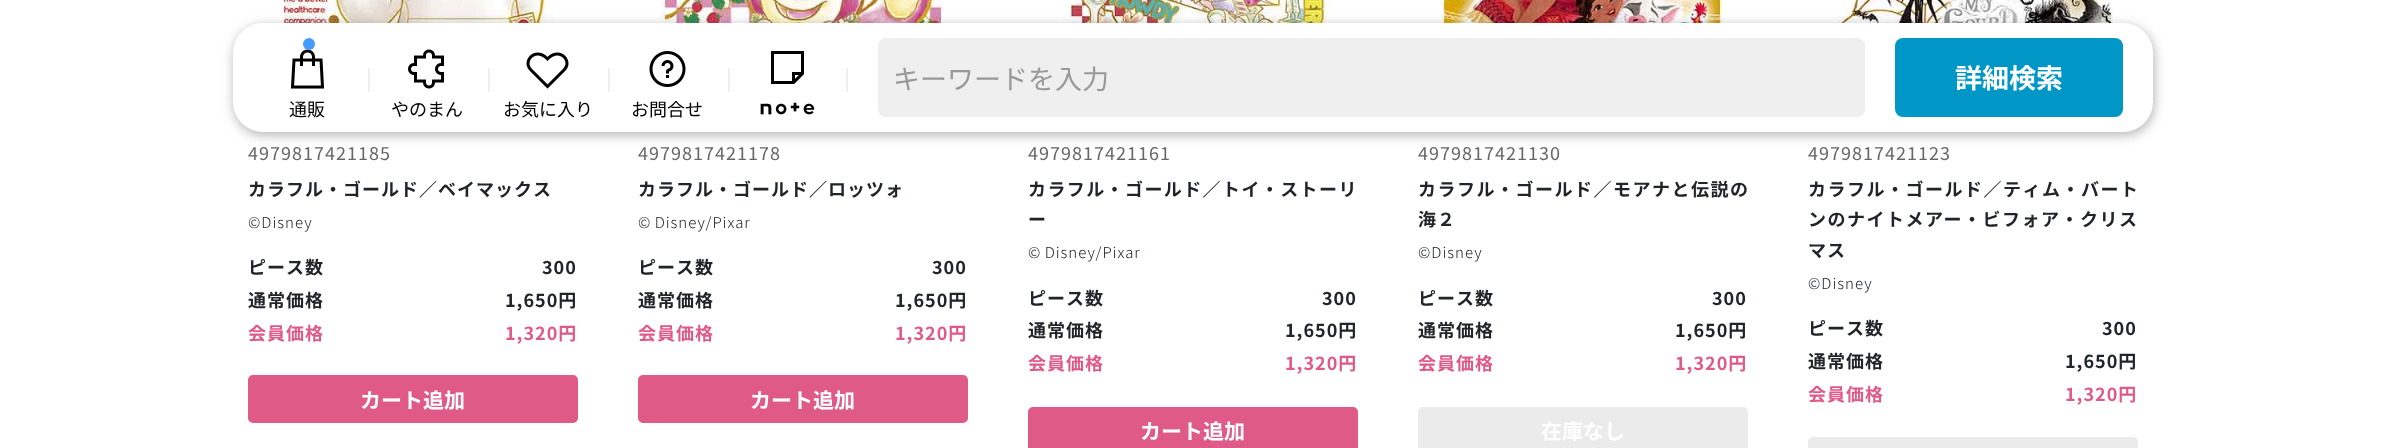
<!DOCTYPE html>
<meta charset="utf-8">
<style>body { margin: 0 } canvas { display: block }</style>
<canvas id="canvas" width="2385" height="448"></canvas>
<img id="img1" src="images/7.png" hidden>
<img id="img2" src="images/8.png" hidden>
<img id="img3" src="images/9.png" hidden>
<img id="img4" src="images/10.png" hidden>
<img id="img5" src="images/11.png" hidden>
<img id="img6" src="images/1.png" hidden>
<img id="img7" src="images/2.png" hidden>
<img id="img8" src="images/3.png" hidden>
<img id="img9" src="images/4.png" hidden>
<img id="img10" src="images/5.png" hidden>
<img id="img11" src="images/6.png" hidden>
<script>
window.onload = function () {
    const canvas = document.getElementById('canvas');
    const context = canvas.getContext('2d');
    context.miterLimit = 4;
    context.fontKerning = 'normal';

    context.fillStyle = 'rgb(255, 255, 255)';
    context.fillRect(0, 0, 2385, 448);
    context.drawImage(document.getElementById('img1'), 271, 0, 282, 23);
    context.drawImage(document.getElementById('img2'), 660, 0, 283, 23);
    context.drawImage(document.getElementById('img3'), 1051, 0, 282, 23);
    context.drawImage(document.getElementById('img4'), 1440, 0, 283, 23);
    context.drawImage(document.getElementById('img5'), 1831, 0, 282, 23);
    context.fillStyle = 'rgba(0, 0, 0, 0.3)';
    context.filter = 'blur(6px)';
    context.beginPath();
    context.roundRect(234, 26, 1920, 109, 30);
    context.fill();
    context.filter = 'none';
    context.fillStyle = 'rgb(255, 255, 255)';
    context.beginPath();
    context.roundRect(233, 23, 1920, 109, 30);
    context.fill();
    context.fillStyle = 'rgb(239, 239, 239)';
    context.beginPath();
    context.roundRect(878, 38, 987, 79, 8);
    context.fill();
    context.fillStyle = 'rgb(0, 151, 198)';
    context.beginPath();
    context.roundRect(1895, 38, 228, 79, 8);
    context.fill();
    context.drawImage(document.getElementById('img6'), 290, 49, 35, 40);
    context.fillStyle = 'rgb(70, 155, 255)';
    context.beginPath();
    context.arc(309, 44, 6, 0, 2 * Math.PI);
    context.fill();
    context.fillStyle = 'rgb(239, 239, 239)';
    context.fillRect(368, 68, 2, 24);
    context.drawImage(document.getElementById('img7'), 408, 49, 36, 40);
    context.fillRect(488, 68, 2, 24);
    context.drawImage(document.getElementById('img8'), 526, 52, 43, 37);
    context.fillRect(608, 68, 2, 24);
    context.drawImage(document.getElementById('img9'), 649, 51, 37, 36);
    context.fillRect(728, 68, 2, 24);
    context.drawImage(document.getElementById('img10'), 771, 51, 33, 33);
    context.drawImage(document.getElementById('img11'), 760, 102, 55, 13);
    context.fillRect(846, 68, 2, 24);
    context.fillStyle = 'rgb(224, 90, 135)';
    context.beginPath();
    context.roundRect(249, 376, 328, 46, 4);
    context.fill();
    context.strokeStyle = 'rgb(224, 90, 135)';
    context.lineWidth = 2;
    context.stroke();
    context.beginPath();
    context.roundRect(639, 376, 328, 46, 4);
    context.fill();
    context.stroke();
    context.beginPath();
    context.roundRect(1029, 408, 328, 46, 4);
    context.fill();
    context.stroke();
    context.fillStyle = 'rgb(235, 235, 235)';
    context.beginPath();
    context.roundRect(1419, 408, 328, 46, 4);
    context.fill();
    context.strokeStyle = 'rgb(235, 235, 235)';
    context.stroke();
    context.beginPath();
    context.roundRect(1809, 438, 328, 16, 4);
    context.fill();
    context.stroke();
    context.font = '27px Noto Sans JP';
    context.fillStyle = 'rgb(153, 153, 153)';
    context.fillText('キーワードを入力', 893, 89);
    context.font = 'bold 27px Noto Sans JP';
    context.fillStyle = 'rgb(255, 255, 255)';
    context.fillText('詳細検索', 1955, 88);
    context.font = '18px Noto Sans JP';
    context.fillStyle = 'rgb(0, 0, 0)';
    context.fillText('通販', 289, 116);
    context.fillText('やのまん', 391, 116);
    context.fillText('お気に入り', 503, 116);
    context.fillText('お問合せ', 631, 116);
    context.letterSpacing = '1px';
    context.fillStyle = 'rgb(102, 102, 102)';
    context.fillText('4979817421185', 248, 160);
    context.font = 'bold 18px Noto Sans JP';
    context.fillStyle = 'rgb(33, 37, 41)';
    context.fillText('カラフル・ゴールド／ベイマックス', 248, 196);
    context.font = '300 15px Noto Sans JP';
    context.fillText('©︎Disney', 248, 228);
    context.font = 'bold 18px Noto Sans JP';
    context.fillText('ピース数', 248, 274);
    context.fillText('300', 542, 274);
    context.fillText('通常価格', 248, 307);
    context.fillText('1,650円', 505, 307);
    context.fillStyle = 'rgb(224, 90, 135)';
    context.fillText('会員価格', 248, 340);
    context.fillText('1,320円', 505, 340);
    context.letterSpacing = '0px';
    context.font = 'bold 21px Noto Sans JP';
    context.fillStyle = 'rgb(255, 255, 255)';
    context.fillText('カート追加', 360, 408);
    context.letterSpacing = '1px';
    context.font = '18px Noto Sans JP';
    context.fillStyle = 'rgb(102, 102, 102)';
    context.fillText('4979817421178', 638, 160);
    context.font = 'bold 18px Noto Sans JP';
    context.fillStyle = 'rgb(33, 37, 41)';
    context.fillText('カラフル・ゴールド／ロッツォ', 638, 196);
    context.wordSpacing = '-1px';
    context.font = '300 15px Noto Sans JP';
    context.fillText('©︎ Disney/Pixar', 638, 228);
    context.wordSpacing = '0px';
    context.font = 'bold 18px Noto Sans JP';
    context.fillText('ピース数', 638, 274);
    context.fillText('300', 932, 274);
    context.fillText('通常価格', 638, 307);
    context.fillText('1,650円', 895, 307);
    context.fillStyle = 'rgb(224, 90, 135)';
    context.fillText('会員価格', 638, 340);
    context.fillText('1,320円', 895, 340);
    context.letterSpacing = '0px';
    context.font = 'bold 21px Noto Sans JP';
    context.fillStyle = 'rgb(255, 255, 255)';
    context.fillText('カート追加', 750, 408);
    context.letterSpacing = '1px';
    context.font = '18px Noto Sans JP';
    context.fillStyle = 'rgb(102, 102, 102)';
    context.fillText('4979817421161', 1028, 160);
    context.letterSpacing = '1.4px';
    context.font = 'bold 18px Noto Sans JP';
    context.fillStyle = 'rgb(33, 37, 41)';
    context.fillText('カラフル・ゴールド／トイ・ストーリ', 1028, 196);
    context.letterSpacing = '1px';
    context.fillText('ー', 1028, 226);
    context.wordSpacing = '-1px';
    context.font = '300 15px Noto Sans JP';
    context.fillText('©︎ Disney/Pixar', 1028, 258);
    context.wordSpacing = '0px';
    context.font = 'bold 18px Noto Sans JP';
    context.fillText('ピース数', 1028, 305);
    context.fillText('300', 1322, 305);
    context.fillText('通常価格', 1028, 337);
    context.fillText('1,650円', 1285, 337);
    context.fillStyle = 'rgb(224, 90, 135)';
    context.fillText('会員価格', 1028, 370);
    context.fillText('1,320円', 1285, 370);
    context.letterSpacing = '0px';
    context.font = 'bold 21px Noto Sans JP';
    context.fillStyle = 'rgb(255, 255, 255)';
    context.fillText('カート追加', 1140, 439);
    context.letterSpacing = '1px';
    context.font = '18px Noto Sans JP';
    context.fillStyle = 'rgb(102, 102, 102)';
    context.fillText('4979817421130', 1418, 160);
    context.letterSpacing = '1.5px';
    context.font = 'bold 18px Noto Sans JP';
    context.fillStyle = 'rgb(33, 37, 41)';
    context.fillText('カラフル・ゴールド／モアナと伝説の', 1418, 196);
    context.letterSpacing = '1px';
    context.fillText('海２', 1418, 226);
    context.font = '300 15px Noto Sans JP';
    context.fillText('©︎Disney', 1418, 258);
    context.font = 'bold 18px Noto Sans JP';
    context.fillText('ピース数', 1418, 305);
    context.fillText('300', 1712, 305);
    context.fillText('通常価格', 1418, 337);
    context.fillText('1,650円', 1675, 337);
    context.fillStyle = 'rgb(224, 90, 135)';
    context.fillText('会員価格', 1418, 370);
    context.fillText('1,320円', 1675, 370);
    context.letterSpacing = '0px';
    context.font = 'bold 21px Noto Sans JP';
    context.fillStyle = 'rgb(255, 255, 255)';
    context.fillText('在庫なし', 1541, 439);
    context.letterSpacing = '1px';
    context.font = '18px Noto Sans JP';
    context.fillStyle = 'rgb(102, 102, 102)';
    context.fillText('4979817421123', 1808, 160);
    context.letterSpacing = '1.5px';
    context.font = 'bold 18px Noto Sans JP';
    context.fillStyle = 'rgb(33, 37, 41)';
    context.fillText('カラフル・ゴールド／ティム・バート', 1808, 196);
    context.fillText('ンのナイトメアー・ビフォア・クリス', 1808, 226);
    context.letterSpacing = '1px';
    context.fillText('マス', 1808, 257);
    context.font = '300 15px Noto Sans JP';
    context.fillText('©︎Disney', 1808, 289);
    context.font = 'bold 18px Noto Sans JP';
    context.fillText('ピース数', 1808, 335);
    context.fillText('300', 2102, 335);
    context.fillText('通常価格', 1808, 368);
    context.fillText('1,650円', 2065, 368);
    context.fillStyle = 'rgb(224, 90, 135)';
    context.fillText('会員価格', 1808, 401);
    context.fillText('1,320円', 2065, 401);
};
</script>
